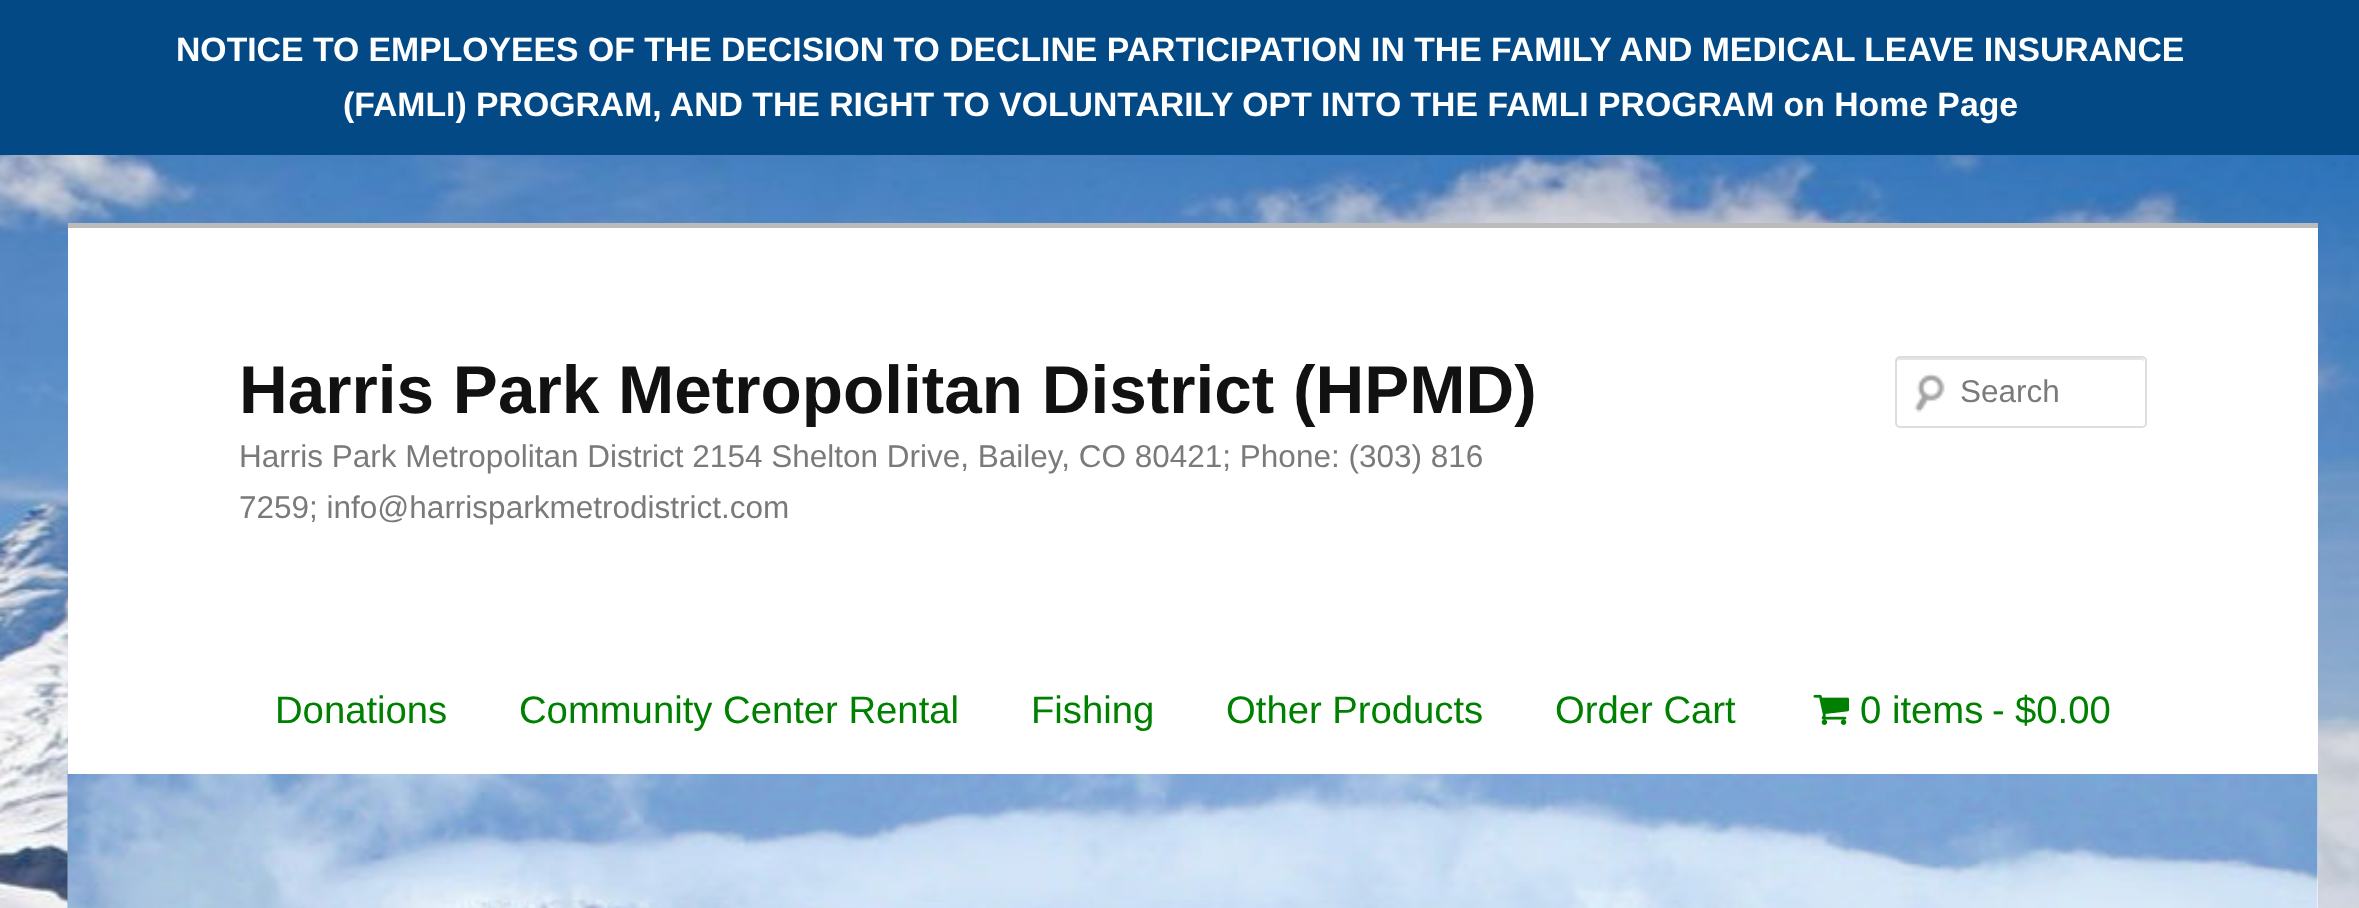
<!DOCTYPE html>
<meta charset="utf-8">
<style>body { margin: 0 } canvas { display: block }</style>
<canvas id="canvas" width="2359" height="908"></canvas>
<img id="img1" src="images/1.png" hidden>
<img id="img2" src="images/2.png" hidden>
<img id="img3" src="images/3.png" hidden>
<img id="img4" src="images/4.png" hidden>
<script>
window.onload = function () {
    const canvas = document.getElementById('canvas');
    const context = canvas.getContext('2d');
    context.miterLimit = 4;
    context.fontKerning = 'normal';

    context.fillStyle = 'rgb(255, 255, 255)';
    context.fillRect(0, 0, 2359, 908);
    context.drawImage(document.getElementById('img1'), 0, 155, 2359, 753);
    context.fillStyle = 'rgb(2, 73, 133)';
    context.fillRect(0, 0, 2359, 155);
    context.fillStyle = 'rgb(255, 255, 255)';
    context.fillRect(68, 228, 2250, 680);
    context.fillStyle = 'rgb(187, 187, 187)';
    context.fillRect(68, 223, 2250, 5);
    context.drawImage(document.getElementById('img2'), 1813, 694, 36, 31);
    context.drawImage(document.getElementById('img3'), 1914, 373, 31, 40);
    context.fillStyle = 'rgb(230, 230, 230)';
    context.beginPath();
    context.moveTo(1899, 360);
    context.lineTo(2142, 360);
    context.bezierCurveTo(2143, 360, 2144, 361, 2144, 362);
    context.bezierCurveTo(2144, 360, 2144, 358, 2142, 358);
    context.lineTo(1899, 358);
    context.bezierCurveTo(1897, 358, 1897, 360, 1897, 362);
    context.bezierCurveTo(1897, 361, 1898, 360, 1899, 360);
    context.closePath();
    context.fill();
    context.beginPath();
    context.roundRect(1896, 357, 250, 70, 4);
    context.strokeStyle = 'rgb(221, 221, 221)';
    context.lineWidth = 2;
    context.stroke();
    context.drawImage(document.getElementById('img4'), 67, 774, 2251, 134);
    context.font = 'bold 33.75px Liberation Sans';
    context.fillStyle = 'rgb(255, 255, 255)';
    context.fillText('NOTICE TO EMPLOYEES OF THE DECISION TO DECLINE PARTICIPATION IN THE FAMILY AND MEDICAL LEAVE INSURANCE', 176, 61);
    context.fillText('(FAMLI) PROGRAM, AND THE RIGHT TO VOLUNTARILY OPT INTO THE FAMLI PROGRAM on Home Page', 343, 116);
    context.font = 'bold 67.5px Liberation Sans';
    context.fillStyle = 'rgb(17, 17, 17)';
    context.fillText('Harris Park Metropolitan District (HPMD)', 239, 413);
    context.font = '31.5px Liberation Sans';
    context.fillStyle = 'rgb(122, 122, 122)';
    context.fillText('Harris Park Metropolitan District 2154 Shelton Drive, Bailey, CO 80421; Phone: (303) 816', 239, 467);
    context.fillText('7259; info@harrisparkmetrodistrict.com', 239, 518);
    context.font = '38.25px Liberation Sans';
    context.fillStyle = 'rgb(0, 128, 0)';
    context.fillText('Donations', 275, 723);
    context.fillText('Community Center Rental', 519, 723);
    context.fillText('Fishing', 1031, 723);
    context.fillText('Other Products', 1226, 723);
    context.fillText('Order Cart', 1555, 723);
    context.fillText('0 items', 1860, 723);
    context.fillText('-', 1992, 723);
    context.fillText('$0.00', 2015, 723);
    context.font = '31.5px Liberation Sans';
    context.fillStyle = 'rgb(122, 122, 122)';
    context.fillText('Search', 1960, 402);
};
</script>
